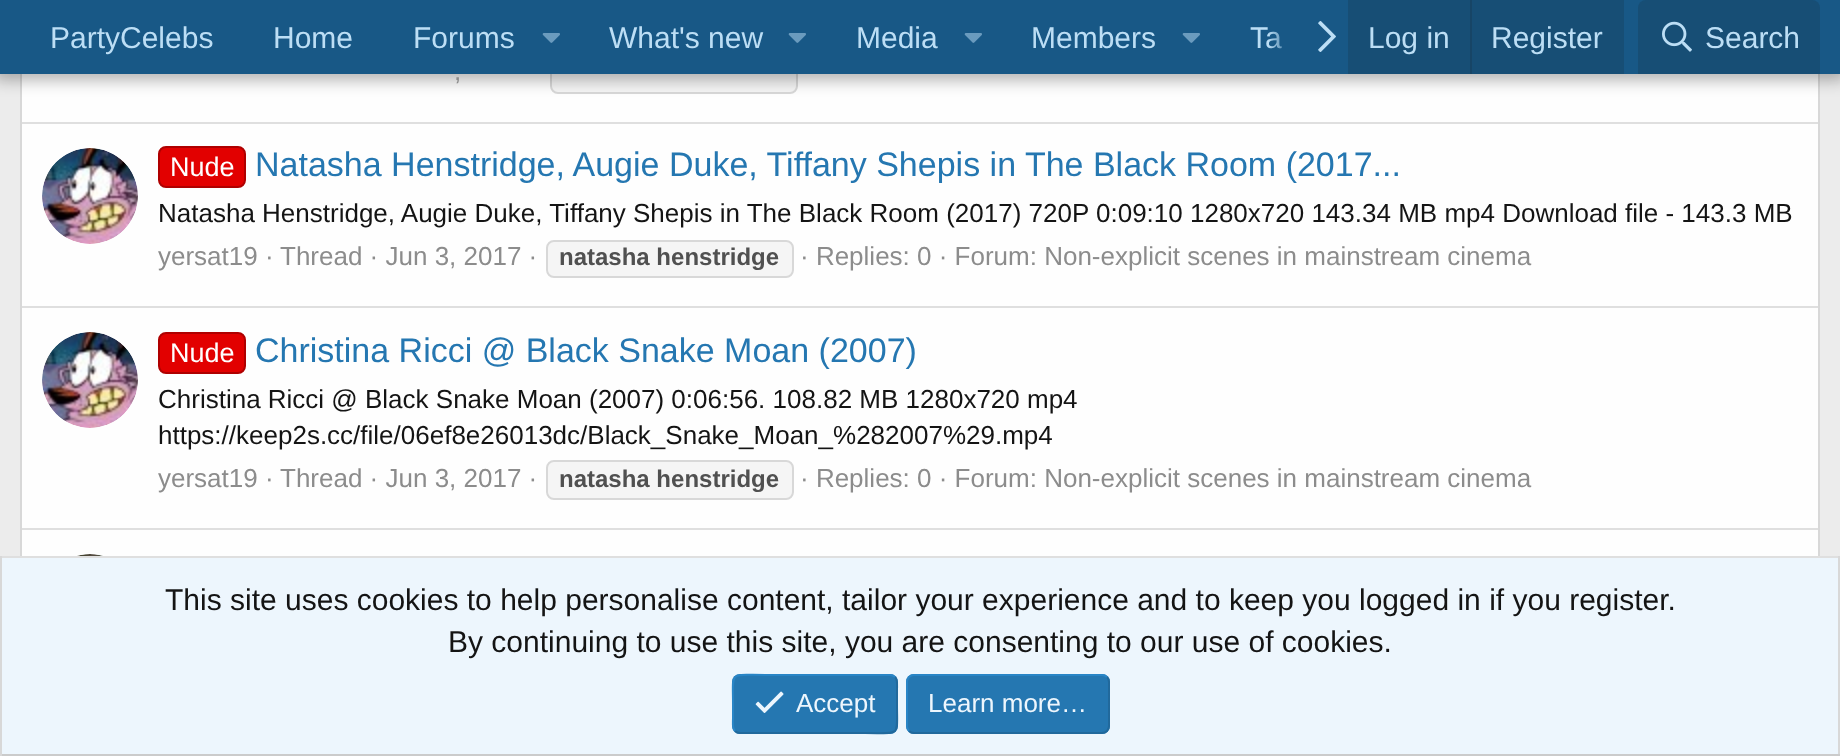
<!DOCTYPE html>
<meta charset="utf-8">
<style>body { margin: 0 } canvas { display: block }</style>
<canvas id="canvas" width="1840" height="756"></canvas>
<img id="img1" src="images/1.png" hidden>
<img id="img2" src="images/2.png" hidden>
<img id="img3" src="images/3.png" hidden>
<img id="img4" src="images/4.png" hidden>
<img id="img5" src="images/5.png" hidden>
<img id="img6" src="images/6.png" hidden>
<img id="img7" src="images/7.png" hidden>
<script>
window.onload = function () {
    const canvas = document.getElementById('canvas');
    const context = canvas.getContext('2d');
    context.miterLimit = 4;
    context.fontKerning = 'normal';
    let gradient;

    context.fillStyle = 'rgb(236, 236, 236)';
    context.fillRect(0, 0, 1840, 756);
    context.fillStyle = 'rgb(254, 254, 254)';
    context.fillRect(22, 74, 1796, 482);
    context.beginPath();
    context.moveTo(1817, -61);
    context.bezierCurveTo(1818.5, -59.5, 1819, -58, 1819, -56);
    context.lineTo(1819, 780);
    context.bezierCurveTo(1819, 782, 1818.5, 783.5, 1817, 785);
    context.strokeStyle = 'rgb(216, 216, 216)';
    context.lineWidth = 2;
    context.stroke();
    context.beginPath();
    context.moveTo(23, 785);
    context.bezierCurveTo(21.5, 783.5, 21, 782, 21, 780);
    context.lineTo(21, -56);
    context.bezierCurveTo(21, -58, 21.5, -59.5, 23, -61);
    context.stroke();
    context.fillStyle = 'rgb(245, 245, 245)';
    context.beginPath();
    context.roundRect(551, 55, 246, 38, 7);
    context.fill();
    context.stroke();
    context.fillStyle = 'rgba(0, 0, 0, 0.3)';
    context.filter = 'blur(8px)';
    context.beginPath();
    context.rect(-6, -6, 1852, 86);
    context.fill();
    context.filter = 'none';
    context.fillStyle = 'rgb(24, 88, 134)';
    context.fillRect(0, 0, 1840, 74);
    context.drawImage(document.getElementById('img1'), 542, 33, 18, 10);
    context.drawImage(document.getElementById('img1'), 788, 33, 18, 10);
    context.drawImage(document.getElementById('img1'), 964, 33, 18, 10);
    context.drawImage(document.getElementById('img1'), 1182, 33, 18, 10);
    context.drawImage(document.getElementById('img2'), 1318, 21, 18, 31);
    context.fillStyle = 'rgb(23, 78, 117)';
    context.fillRect(1348, 0, 276, 74);
    context.fillStyle = 'rgb(23, 69, 102)';
    context.fillRect(1470, 0, 2, 74);
    context.fillStyle = 'rgb(23, 78, 117)';
    context.beginPath();
    context.roundRect(1638, 0, 182, 74, [8, 8, 0, 0]);
    context.fill();
    context.drawImage(document.getElementById('img3'), 1662, 21, 30, 31);
    context.fillStyle = 'rgb(223, 223, 223)';
    context.fillRect(22, 122, 1796, 2);
    context.drawImage(document.getElementById('img4'), 42, 148, 96, 96);
    context.fillStyle = 'rgb(226, 0, 0)';
    context.beginPath();
    context.roundRect(159, 147, 86, 40, 7);
    context.fill();
    context.strokeStyle = 'rgb(175, 0, 0)';
    context.stroke();
    context.fillStyle = 'rgb(245, 245, 245)';
    context.beginPath();
    context.roundRect(547, 241, 246, 36, 7);
    context.fill();
    context.strokeStyle = 'rgb(216, 216, 216)';
    context.stroke();
    context.fillStyle = 'rgb(223, 223, 223)';
    context.fillRect(22, 306, 1796, 2);
    context.drawImage(document.getElementById('img5'), 42, 332, 96, 96);
    context.fillStyle = 'rgb(226, 0, 0)';
    context.beginPath();
    context.roundRect(159, 333, 86, 40, 7);
    context.fill();
    context.strokeStyle = 'rgb(175, 0, 0)';
    context.stroke();
    context.fillStyle = 'rgb(245, 245, 245)';
    context.beginPath();
    context.roundRect(547, 461, 246, 38, 7);
    context.fill();
    context.strokeStyle = 'rgb(216, 216, 216)';
    context.stroke();
    context.fillStyle = 'rgb(223, 223, 223)';
    context.fillRect(22, 528, 1796, 2);
    context.drawImage(document.getElementById('img6'), 77, 554, 26, 2);
    context.fillStyle = 'rgb(237, 246, 253)';
    context.fillRect(2, 558, 1836, 196);
    context.fillStyle = 'rgb(223, 223, 223)';
    context.fillRect(0, 556, 1840, 2);
    context.fillStyle = 'rgb(216, 216, 216)';
    context.fillRect(1838, 556, 2, 200);
    context.fillStyle = 'rgb(203, 203, 203)';
    context.fillRect(0, 754, 1840, 2);
    context.fillStyle = 'rgb(216, 216, 216)';
    context.fillRect(0, 556, 2, 200);
    context.fillStyle = 'rgb(37, 119, 177)';
    context.beginPath();
    context.roundRect(732, 674, 166, 60, 8);
    context.fill();
    context.beginPath();
    context.moveTo(895, 677);
    context.bezierCurveTo(898, 680, 897, 685.5, 897, 689.5);
    context.lineTo(897, 704);
    context.bezierCurveTo(897, 738, 901.5, 733, 865, 733);
    context.lineTo(740, 733);
    context.bezierCurveTo(738, 733, 736.5, 732.5, 735, 731);
    context.strokeStyle = 'rgb(33, 105, 156)';
    context.stroke();
    context.beginPath();
    context.moveTo(735, 731);
    context.bezierCurveTo(732, 728, 733, 722.5, 733, 718.5);
    context.lineTo(733, 704);
    context.bezierCurveTo(733, 670, 728.5, 675, 765, 675);
    context.lineTo(890, 675);
    context.bezierCurveTo(892, 675, 893.5, 675.5, 895, 677);
    context.strokeStyle = 'rgb(41, 133, 198)';
    context.stroke();
    context.drawImage(document.getElementById('img7'), 755, 691, 29, 22);
    context.beginPath();
    context.roundRect(906, 674, 204, 60, 8);
    context.fill();
    context.beginPath();
    context.moveTo(1107, 677);
    context.bezierCurveTo(1108.5, 678.5, 1109, 680, 1109, 682);
    context.lineTo(1109, 726);
    context.bezierCurveTo(1109, 728, 1108.5, 729.5, 1107, 731);
    context.bezierCurveTo(1105.5, 732.5, 1104, 733, 1102, 733);
    context.lineTo(914, 733);
    context.bezierCurveTo(912, 733, 910.5, 732.5, 909, 731);
    context.strokeStyle = 'rgb(33, 105, 156)';
    context.stroke();
    context.beginPath();
    context.moveTo(909, 731);
    context.bezierCurveTo(907.5, 729.5, 907, 728, 907, 726);
    context.lineTo(907, 682);
    context.bezierCurveTo(907, 680, 907.5, 678.5, 909, 677);
    context.bezierCurveTo(910.5, 675.5, 912, 675, 914, 675);
    context.lineTo(1102, 675);
    context.bezierCurveTo(1104, 675, 1105.5, 675.5, 1107, 677);
    context.strokeStyle = 'rgb(41, 133, 198)';
    context.stroke();
    context.font = '30px Liberation Sans';
    context.fillStyle = 'rgb(188, 222, 245)';
    context.fillText('PartyCelebs', 50, 48);
    context.fillText('Home', 273, 48);
    context.fillText('Forums', 413, 48);
    context.fillText('What\'s new', 609, 48);
    context.fillText('Media', 856, 48);
    context.fillText('Members', 1031, 48);
    context.fillText('Ta', 1250, 48);
    gradient = context.createLinearGradient(1268, 37, 1348, 37);
    gradient.addColorStop(0, 'rgba(24, 88, 134, 0)');
    gradient.addColorStop(0.33, 'rgb(24, 88, 134)');
    context.fillStyle = gradient;
    context.fillRect(1269, 31, 13, 18);
    context.fillStyle = 'rgb(188, 222, 245)';
    context.fillText('Log in', 1368, 48);
    context.fillText('Register', 1491, 48);
    context.fillText('Search', 1705, 48);
    context.font = '26px Liberation Sans';
    context.fillStyle = 'rgb(140, 140, 140)';
    context.fillText(',', 454, 80);
    context.font = '27px Liberation Sans';
    context.fillStyle = 'rgb(255, 255, 255)';
    context.fillText('Nude', 170, 176);
    context.font = '34px Liberation Sans';
    context.fillStyle = 'rgb(37, 119, 177)';
    context.fillText('Natasha Henstridge, Augie Duke, Tiffany Shepis in The Black Room (2017...', 255, 176);
    context.font = '26px Liberation Sans';
    context.fillStyle = 'rgb(20, 20, 20)';
    context.fillText('Natasha Henstridge, Augie Duke, Tiffany Shepis in The Black Room (2017) 720P 0:09:10 1280x720 143.34 MB mp4 Download file - 143.3 MB', 158, 222);
    context.fillStyle = 'rgb(140, 140, 140)';
    context.fillText('yersat19 ·', 158, 265);
    context.fillText('Thread · Jun 3, 2017 ·', 280, 265);
    context.font = 'bold 24px Liberation Sans';
    context.fillStyle = 'rgb(80, 80, 80)';
    context.fillText('natasha henstridge', 559, 265);
    context.font = '26px Liberation Sans';
    context.fillStyle = 'rgb(140, 140, 140)';
    context.fillText('· Replies: 0 · Forum: Non-explicit scenes in mainstream cinema', 800, 265);
    context.font = '27px Liberation Sans';
    context.fillStyle = 'rgb(255, 255, 255)';
    context.fillText('Nude', 170, 362);
    context.font = '34px Liberation Sans';
    context.fillStyle = 'rgb(37, 119, 177)';
    context.fillText('Christina Ricci @ Black Snake Moan (2007)', 255, 362);
    context.font = '26px Liberation Sans';
    context.fillStyle = 'rgb(20, 20, 20)';
    context.fillText('Christina Ricci @ Black Snake Moan (2007) 0:06:56. 108.82 MB 1280x720 mp4', 158, 408);
    context.fillText('https://keep2s.cc/file/06ef8e26013dc/Black_Snake_Moan_%282007%29.mp4', 158, 444);
    context.fillStyle = 'rgb(140, 140, 140)';
    context.fillText('yersat19 ·', 158, 487);
    context.fillText('Thread · Jun 3, 2017 ·', 280, 487);
    context.font = 'bold 24px Liberation Sans';
    context.fillStyle = 'rgb(80, 80, 80)';
    context.fillText('natasha henstridge', 559, 487);
    context.font = '26px Liberation Sans';
    context.fillStyle = 'rgb(140, 140, 140)';
    context.fillText('· Replies: 0 · Forum: Non-explicit scenes in mainstream cinema', 800, 487);
    context.font = '30px Liberation Sans';
    context.fillStyle = 'rgb(20, 20, 20)';
    context.fillText('This site uses cookies to help personalise content, tailor your experience and to keep you logged in if you register.', 165, 610);
    context.fillText('By continuing to use this site, you are consenting to our use of cookies.', 448, 652);
    context.font = '26px Liberation Sans';
    context.fillStyle = 'rgb(237, 246, 253)';
    context.fillText('Accept', 796, 712);
    context.fillText('Learn more…', 928, 712);
};
</script>
